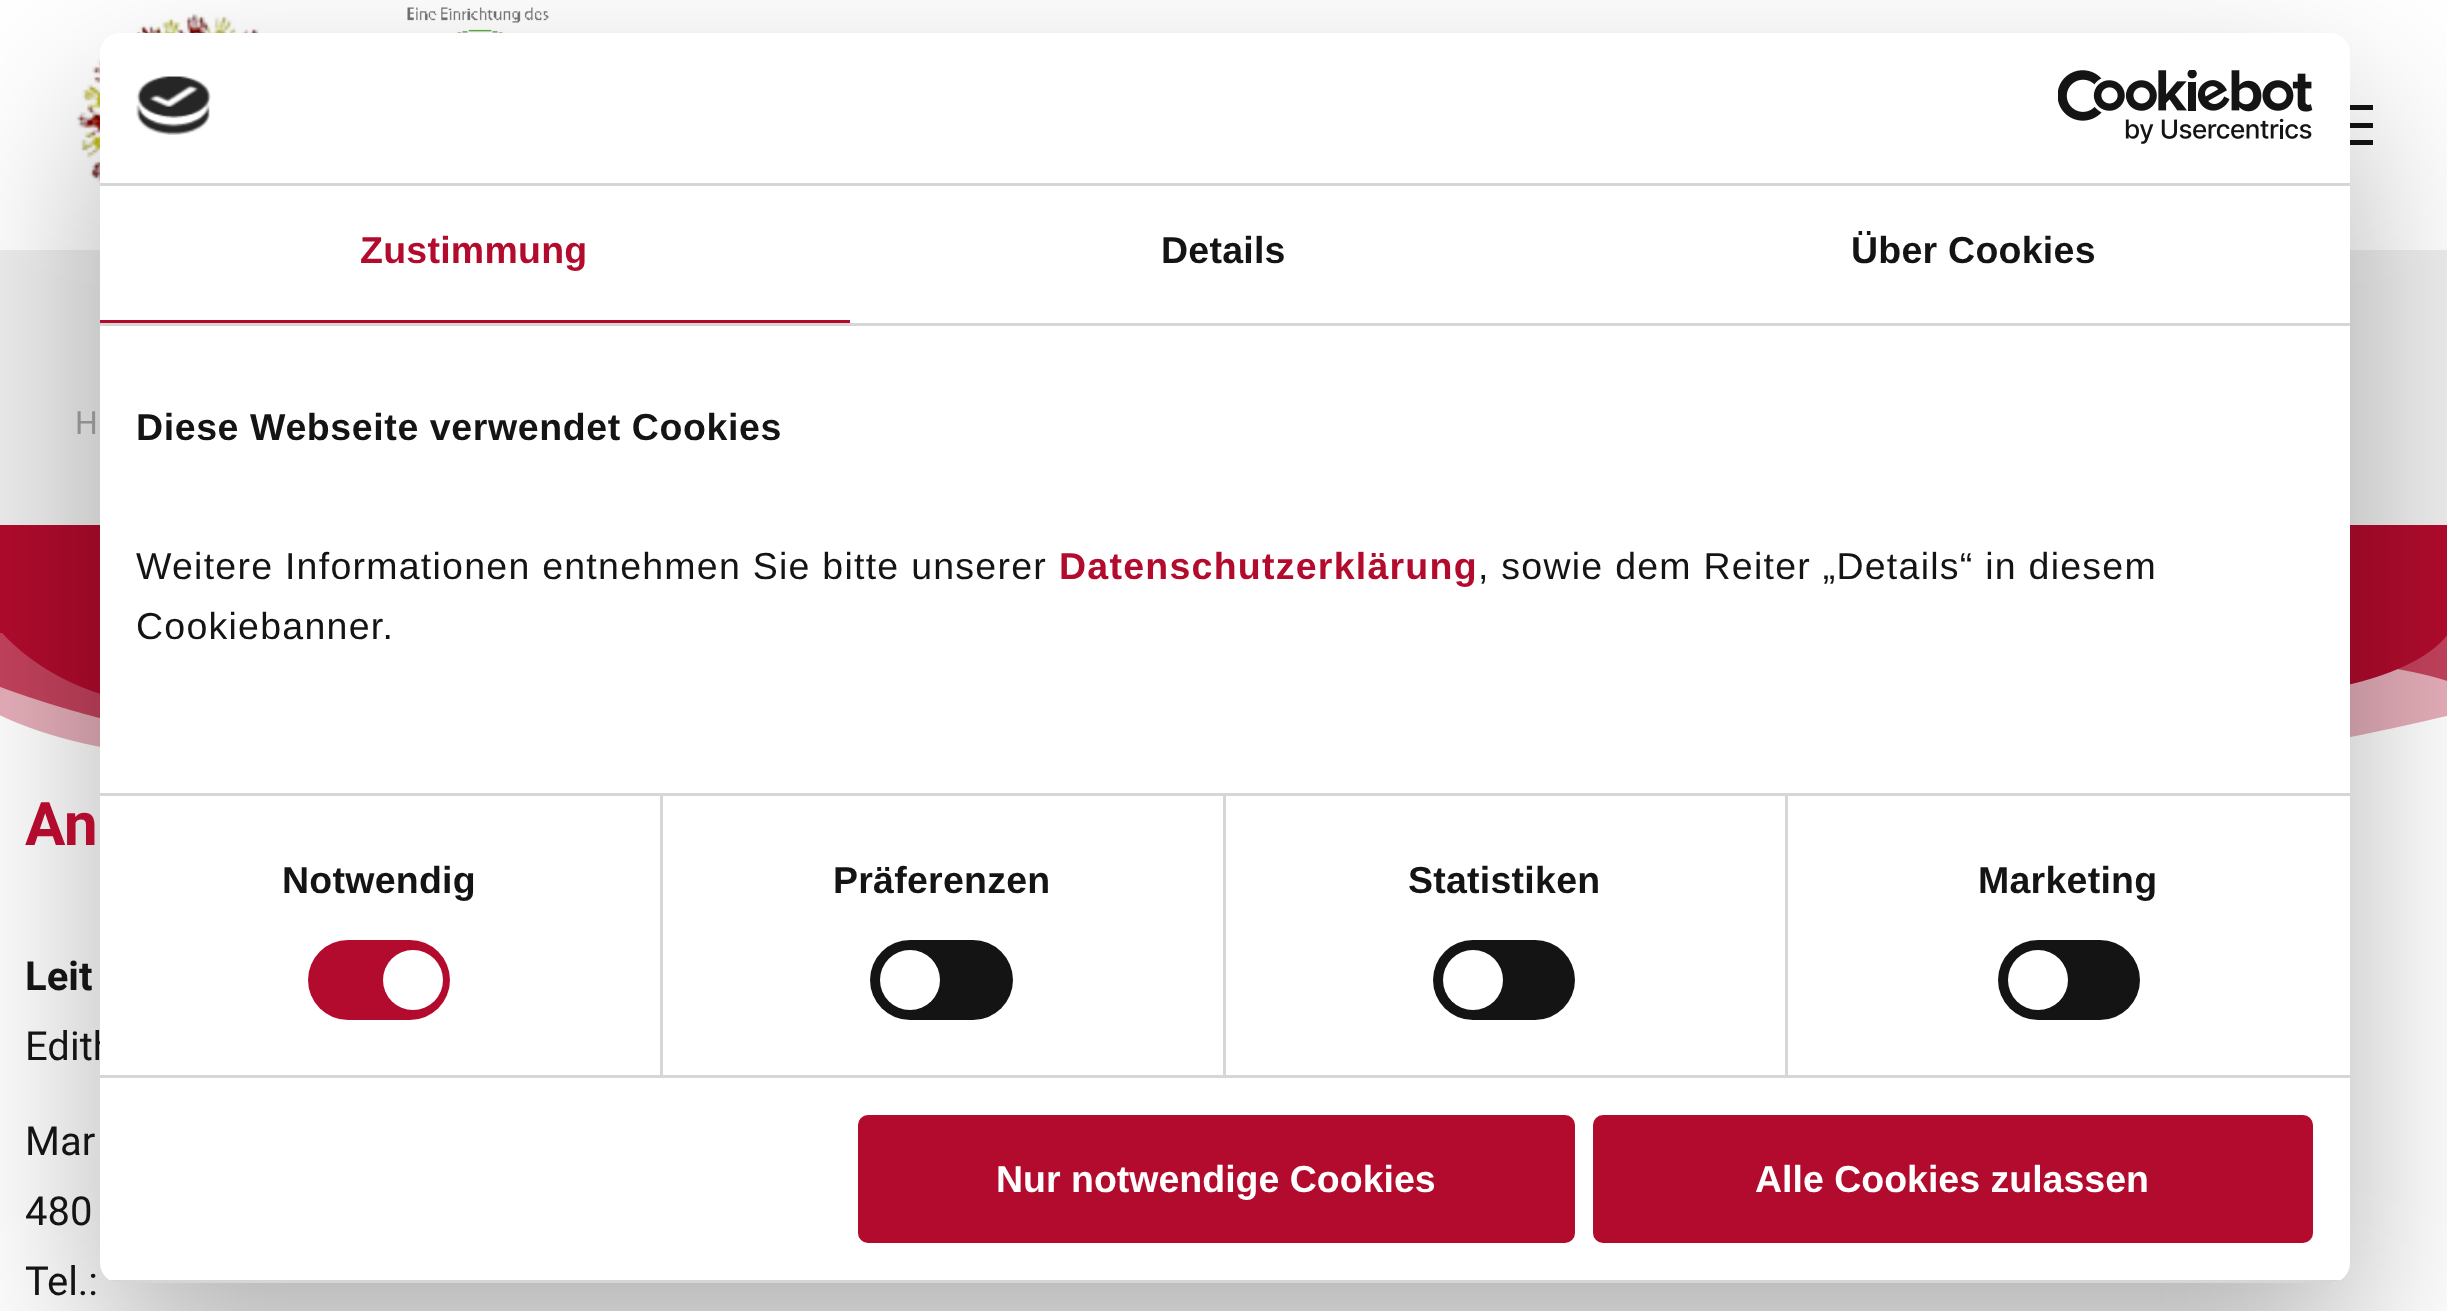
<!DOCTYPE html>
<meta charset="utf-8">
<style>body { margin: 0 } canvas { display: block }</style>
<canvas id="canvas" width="2447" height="1311"></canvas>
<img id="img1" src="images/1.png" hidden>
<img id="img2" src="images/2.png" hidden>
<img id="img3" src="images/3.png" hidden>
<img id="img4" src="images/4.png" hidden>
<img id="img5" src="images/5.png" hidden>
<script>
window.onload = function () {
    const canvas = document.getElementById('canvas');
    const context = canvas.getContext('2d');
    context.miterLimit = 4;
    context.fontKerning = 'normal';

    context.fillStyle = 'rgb(255, 255, 255)';
    context.fillRect(0, 0, 2447, 1311);
    context.drawImage(document.getElementById('img1'), 76, 13, 185, 171);
    context.drawImage(document.getElementById('img2'), 407, 7, 142, 26);
    context.fillStyle = 'rgb(20, 20, 20)';
    context.fillRect(2350, 105, 23, 5);
    context.fillRect(2350, 123, 23, 5);
    context.fillRect(2350, 140, 23, 5);
    context.fillStyle = 'rgb(239, 239, 239)';
    context.fillRect(0, 250, 2447, 275);
    context.fillStyle = 'rgb(178, 11, 45)';
    context.fillRect(0, 525, 2447, 108);
    context.drawImage(document.getElementById('img3'), 0, 633, 2447, 114);
    context.fillStyle = 'rgba(0, 0, 0, 0.3)';
    context.filter = 'blur(85px)';
    context.beginPath();
    context.roundRect(100, 113, 2250, 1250, 20);
    context.fill();
    context.filter = 'none';
    context.font = '32px Roboto';
    context.fillStyle = 'rgb(143, 143, 143)';
    context.fillText('H', 75, 434);
    context.font = 'bold 60px Roboto';
    context.fillStyle = 'rgb(178, 11, 45)';
    context.fillText('An', 25, 845);
    context.font = 'bold 40px Roboto';
    context.fillStyle = 'rgb(20, 20, 20)';
    context.fillText('Leit', 25, 990);
    context.font = '40px Roboto';
    context.fillText('Edith', 25, 1060);
    context.fillText('Mar', 25, 1155);
    context.fillText('480', 25, 1225);
    context.fillText('Tel.:', 25, 1295);
    context.fillStyle = 'rgb(255, 255, 255)';
    context.beginPath();
    context.roundRect(100, 33, 2250, 1250, 20);
    context.fill();
    context.fillStyle = 'rgb(214, 214, 214)';
    context.fillRect(100, 183, 2250, 3);
    context.drawImage(document.getElementById('img4'), 136, 76, 75, 59);
    context.drawImage(document.getElementById('img5'), 2058, 70, 255, 74);
    context.fillRect(100, 323, 2250, 3);
    context.fillStyle = 'rgb(178, 11, 45)';
    context.fillRect(100, 320, 750, 3);
    context.letterSpacing = '0.25px';
    context.font = 'bold 37.5px Liberation Sans';
    context.fillText('Zustimmung', 360, 263);
    context.fillStyle = 'rgb(20, 20, 20)';
    context.fillText('Details', 1161, 263);
    context.fillText('Über Cookies', 1851, 263);
    context.letterSpacing = '0.6px';
    context.fillText('Diese Webseite verwendet Cookies', 136, 440);
    context.letterSpacing = '1.25px';
    context.font = '37.5px Liberation Sans';
    context.fillText('Weitere Informationen entnehmen Sie bitte unserer', 136, 579);
    context.font = 'bold 37.5px Liberation Sans';
    context.fillStyle = 'rgb(178, 11, 45)';
    context.fillText('Datenschutzerklärung', 1059, 579);
    context.font = '37.5px Liberation Sans';
    context.fillStyle = 'rgb(20, 20, 20)';
    context.fillText(', sowie dem Reiter „Details“ in diesem', 1478, 579);
    context.fillText('Cookiebanner.', 136, 639);
    context.fillStyle = 'rgb(214, 214, 214)';
    context.fillRect(100, 1075, 2250, 3);
    context.fillRect(660, 795, 3, 280);
    context.letterSpacing = '0.25px';
    context.font = 'bold 37.5px Liberation Sans';
    context.fillStyle = 'rgb(20, 20, 20)';
    context.fillText('Notwendig', 282, 893);
    context.fillStyle = 'rgb(178, 11, 45)';
    context.beginPath();
    context.roundRect(308, 940, 142, 80, 40);
    context.fill();
    context.fillStyle = 'rgb(255, 255, 255)';
    context.beginPath();
    context.arc(413, 980, 30, 0, 2 * Math.PI);
    context.fill();
    context.fillStyle = 'rgb(214, 214, 214)';
    context.fillRect(1223, 795, 3, 280);
    context.fillStyle = 'rgb(20, 20, 20)';
    context.fillText('Präferenzen', 833, 893);
    context.beginPath();
    context.roundRect(870, 940, 143, 80, 40);
    context.fill();
    context.fillStyle = 'rgb(255, 255, 255)';
    context.beginPath();
    context.arc(910, 980, 30, 0, 2 * Math.PI);
    context.fill();
    context.fillStyle = 'rgb(214, 214, 214)';
    context.fillRect(1785, 795, 3, 280);
    context.fillRect(100, 793, 2250, 3);
    context.fillStyle = 'rgb(20, 20, 20)';
    context.fillText('Statistiken', 1408, 893);
    context.beginPath();
    context.roundRect(1433, 940, 142, 80, 40);
    context.fill();
    context.fillStyle = 'rgb(255, 255, 255)';
    context.beginPath();
    context.arc(1473, 980, 30, 0, 2 * Math.PI);
    context.fill();
    context.fillStyle = 'rgb(20, 20, 20)';
    context.fillText('Marketing', 1978, 893);
    context.beginPath();
    context.roundRect(1998, 940, 142, 80, 40);
    context.fill();
    context.fillStyle = 'rgb(255, 255, 255)';
    context.beginPath();
    context.arc(2038, 980, 30, 0, 2 * Math.PI);
    context.fill();
    context.save();
    context.beginPath();
    context.roundRect(100, 33, 2250, 1250, 20);
    context.clip();
    context.fillStyle = 'rgb(214, 214, 214)';
    context.fillRect(109, 1280, 2232, 3);
    context.restore();
    context.fillStyle = 'rgb(178, 11, 45)';
    context.beginPath();
    context.roundRect(860.5, 1117.5, 712, 123, 7.5);
    context.fill();
    context.strokeStyle = 'rgb(178, 11, 45)';
    context.lineWidth = 5;
    context.stroke();
    context.letterSpacing = '0px';
    context.fillStyle = 'rgb(255, 255, 255)';
    context.fillText('Nur notwendige Cookies', 996, 1192);
    context.fillStyle = 'rgb(178, 11, 45)';
    context.beginPath();
    context.roundRect(1595.5, 1117.5, 715, 123, 7.5);
    context.fill();
    context.stroke();
    context.fillStyle = 'rgb(255, 255, 255)';
    context.fillText('Alle Cookies zulassen', 1755, 1192);
};
</script>
